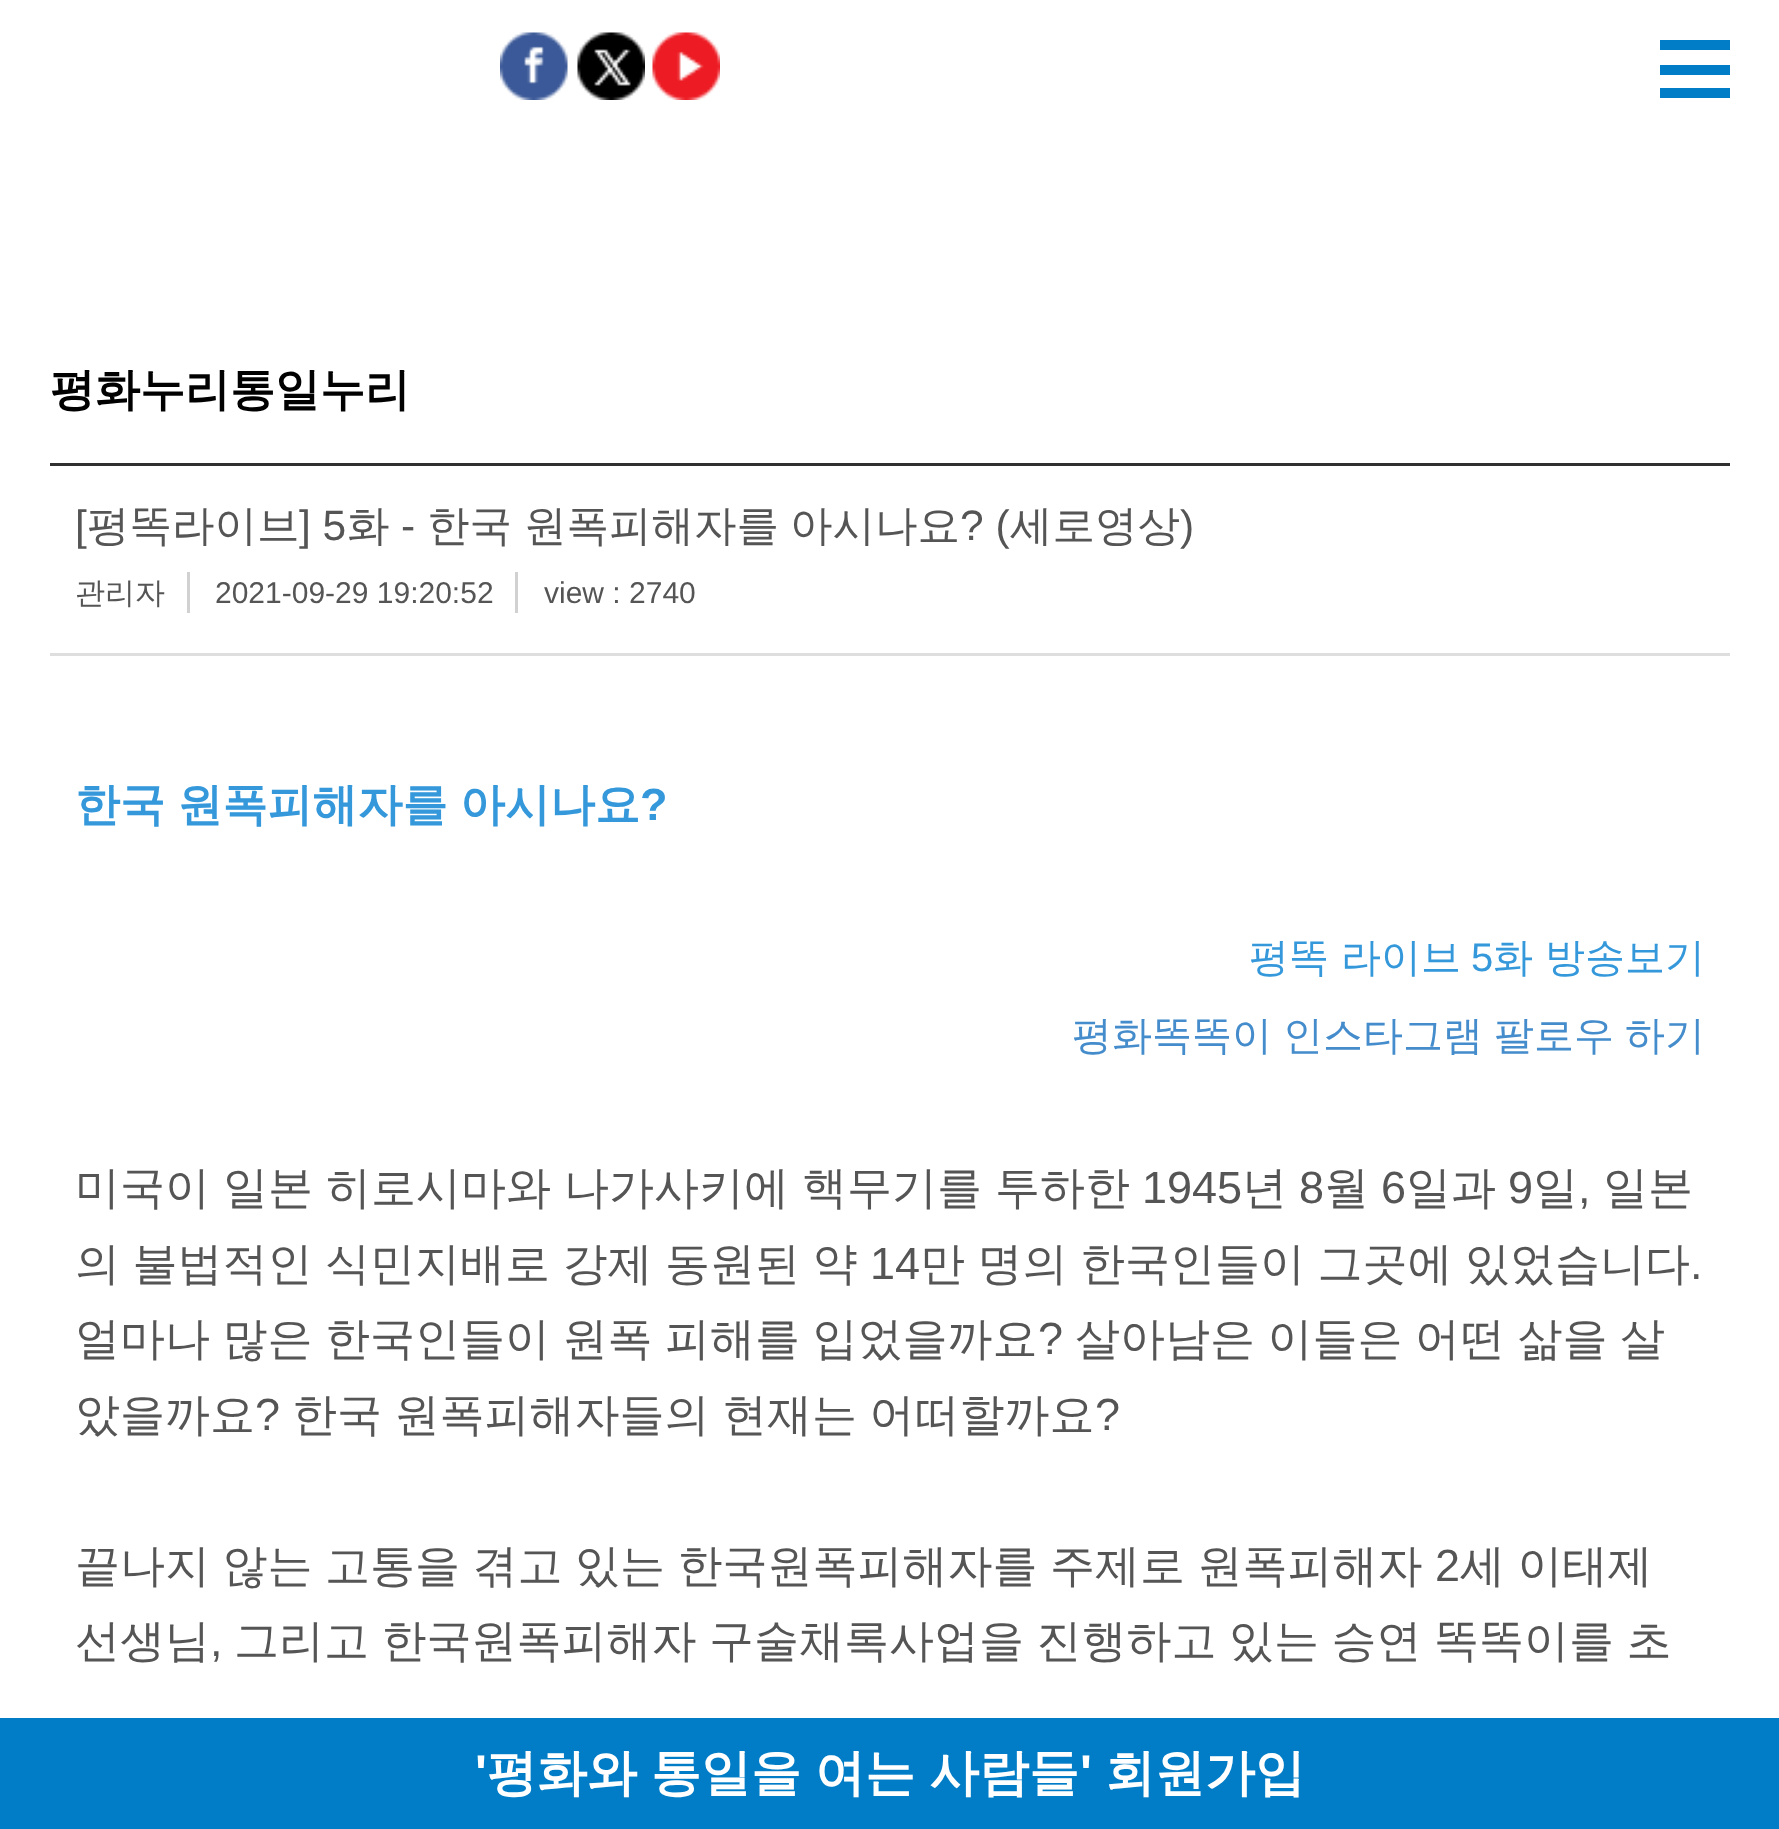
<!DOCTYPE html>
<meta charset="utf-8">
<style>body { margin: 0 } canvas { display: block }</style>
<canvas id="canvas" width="1779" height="1829"></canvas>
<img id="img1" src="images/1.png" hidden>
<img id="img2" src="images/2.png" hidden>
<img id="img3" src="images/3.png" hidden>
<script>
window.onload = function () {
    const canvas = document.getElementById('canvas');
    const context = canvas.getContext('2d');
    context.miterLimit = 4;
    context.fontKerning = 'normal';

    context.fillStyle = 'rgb(255, 255, 255)';
    context.fillRect(0, 0, 1779, 1829);
    context.drawImage(document.getElementById('img1'), 500, 32, 68, 68);
    context.drawImage(document.getElementById('img2'), 577, 32, 68, 68);
    context.drawImage(document.getElementById('img3'), 652, 32, 68, 68);
    context.fillStyle = 'rgb(0, 125, 198)';
    context.fillRect(1660, 40, 70, 10);
    context.fillRect(1660, 65, 70, 10);
    context.fillRect(1660, 88, 70, 10);
    context.fillStyle = 'rgb(48, 48, 48)';
    context.fillRect(50, 463, 1680, 3);
    context.fillStyle = 'rgb(222, 222, 222)';
    context.fillRect(50, 653, 1680, 3);
    context.fillStyle = 'rgb(209, 209, 209)';
    context.fillRect(187, 572, 3, 41);
    context.fillRect(515, 572, 3, 41);
    context.fillStyle = 'rgb(0, 125, 198)';
    context.fillRect(0, 1718, 1779, 111);
    context.font = 'bold 45px WenQuanYi Zen Hei';
    context.fillStyle = 'rgb(1, 1, 1)';
    context.fillText('평화누리통일누리', 50, 405);
    context.font = '42.5px Liberation Sans';
    context.fillStyle = 'rgb(85, 85, 85)';
    context.fillText('[', 75, 540);
    context.font = '500 42.5px WenQuanYi Zen Hei';
    context.fillText('평똑라이브', 87, 540);
    context.font = '42.5px Liberation Sans';
    context.fillText('] 5', 299, 540);
    context.font = '500 42.5px WenQuanYi Zen Hei';
    context.fillText('화', 347, 540);
    context.font = '42.5px Liberation Sans';
    context.fillText('-', 401, 540);
    context.font = '500 42.5px WenQuanYi Zen Hei';
    context.fillText('한국', 427, 540);
    context.fillText('원폭피해자를', 524, 540);
    context.fillText('아시나요', 790, 540);
    context.font = '42.5px Liberation Sans';
    context.fillText('? (', 960, 540);
    context.font = '500 42.5px WenQuanYi Zen Hei';
    context.fillText('세로영상', 1010, 540);
    context.font = '42.5px Liberation Sans';
    context.fillText(')', 1180, 540);
    context.font = '500 30px WenQuanYi Zen Hei';
    context.fillText('관리자', 75, 603);
    context.font = '30px Liberation Sans';
    context.fillText('2021-09-29 19:20:52', 215, 603);
    context.fillText('view : 2740', 544, 603);
    context.wordSpacing = '-1px';
    context.font = 'bold 45px WenQuanYi Zen Hei';
    context.fillStyle = 'rgb(52, 152, 219)';
    context.fillText('한국 원폭피해자를 아시나요', 75, 820);
    context.wordSpacing = '0px';
    context.font = 'bold 45px Liberation Sans';
    context.fillText('?', 640, 820);
    context.font = '500 40px WenQuanYi Zen Hei';
    context.fillText('평똑', 1249, 971);
    context.fillText('라이브', 1341, 971);
    context.font = '40px Liberation Sans';
    context.fillText('5', 1471, 971);
    context.font = '500 40px WenQuanYi Zen Hei';
    context.fillText('화 방송보기', 1493, 971);
    context.wordSpacing = '-1px';
    context.fillStyle = 'rgb(68, 140, 203)';
    context.fillText('평화똑똑이 인스타그램 팔로우 하기', 1072, 1049);
    context.wordSpacing = '-0.5px';
    context.font = '500 45px WenQuanYi Zen Hei';
    context.fillStyle = 'rgb(85, 85, 85)';
    context.fillText('미국이 일본 히로시마와 나가사키에 핵무기를 투하한', 75, 1203);
    context.wordSpacing = '0px';
    context.font = '45px Liberation Sans';
    context.fillText('1945', 1142, 1203);
    context.font = '500 45px WenQuanYi Zen Hei';
    context.fillText('년', 1242, 1203);
    context.font = '45px Liberation Sans';
    context.fillText('8', 1299, 1203);
    context.font = '500 45px WenQuanYi Zen Hei';
    context.fillText('월', 1324, 1203);
    context.font = '45px Liberation Sans';
    context.fillText('6', 1381, 1203);
    context.font = '500 45px WenQuanYi Zen Hei';
    context.fillText('일과', 1406, 1203);
    context.font = '45px Liberation Sans';
    context.fillText('9', 1508, 1203);
    context.font = '500 45px WenQuanYi Zen Hei';
    context.fillText('일', 1533, 1203);
    context.font = '45px Liberation Sans';
    context.fillText(',', 1578, 1203);
    context.font = '500 45px WenQuanYi Zen Hei';
    context.fillText('일본', 1603, 1203);
    context.wordSpacing = '-1px';
    context.fillText('의 불법적인 식민지배로 강제 동원된 약', 75, 1279);
    context.wordSpacing = '0px';
    context.font = '45px Liberation Sans';
    context.fillText('14', 870, 1279);
    context.wordSpacing = '-1px';
    context.font = '500 45px WenQuanYi Zen Hei';
    context.fillText('만 명의 한국인들이 그곳에 있었습니다', 920, 1279);
    context.wordSpacing = '0px';
    context.font = '45px Liberation Sans';
    context.fillText('.', 1690, 1279);
    context.wordSpacing = '-1px';
    context.font = '500 45px WenQuanYi Zen Hei';
    context.fillText('얼마나 많은 한국인들이 원폭 피해를 입었을까요', 75, 1354);
    context.wordSpacing = '0px';
    context.font = '45px Liberation Sans';
    context.fillText('?', 1038, 1354);
    context.wordSpacing = '-1px';
    context.font = '500 45px WenQuanYi Zen Hei';
    context.fillText('살아남은 이들은 어떤 삶을 살', 1075, 1354);
    context.wordSpacing = '0px';
    context.fillText('았을까요', 75, 1430);
    context.font = '45px Liberation Sans';
    context.fillText('?', 255, 1430);
    context.wordSpacing = '-1px';
    context.font = '500 45px WenQuanYi Zen Hei';
    context.fillText('한국 원폭피해자들의 현재는 어떠할까요', 292, 1430);
    context.wordSpacing = '0px';
    context.font = '45px Liberation Sans';
    context.fillText('?', 1095, 1430);
    context.wordSpacing = '-1px';
    context.font = '500 45px WenQuanYi Zen Hei';
    context.fillText('끝나지 않는 고통을 겪고 있는 한국원폭피해자를 주제로 원폭피해자', 75, 1581);
    context.wordSpacing = '0px';
    context.font = '45px Liberation Sans';
    context.fillText('2', 1435, 1581);
    context.wordSpacing = '-1px';
    context.font = '500 45px WenQuanYi Zen Hei';
    context.fillText('세 이태제', 1460, 1581);
    context.wordSpacing = '0px';
    context.fillText('선생님', 75, 1656);
    context.font = '45px Liberation Sans';
    context.fillText(',', 210, 1656);
    context.wordSpacing = '-1px';
    context.font = '500 45px WenQuanYi Zen Hei';
    context.fillText('그리고 한국원폭피해자 구술채록사업을 진행하고 있는 승연 똑똑이를 초', 234, 1656);
    context.wordSpacing = '0px';
    context.font = 'bold 50px Liberation Sans';
    context.fillStyle = 'rgb(255, 255, 255)';
    context.fillText('\'', 475, 1790);
    context.wordSpacing = '-1px';
    context.font = 'bold 50px WenQuanYi Zen Hei';
    context.fillText('평화와 통일을 여는 사람들', 487, 1790);
    context.wordSpacing = '0px';
    context.font = 'bold 50px Liberation Sans';
    context.fillText('\'', 1080, 1790);
    context.font = 'bold 50px WenQuanYi Zen Hei';
    context.fillText('회원가입', 1105, 1790);
};
</script>
